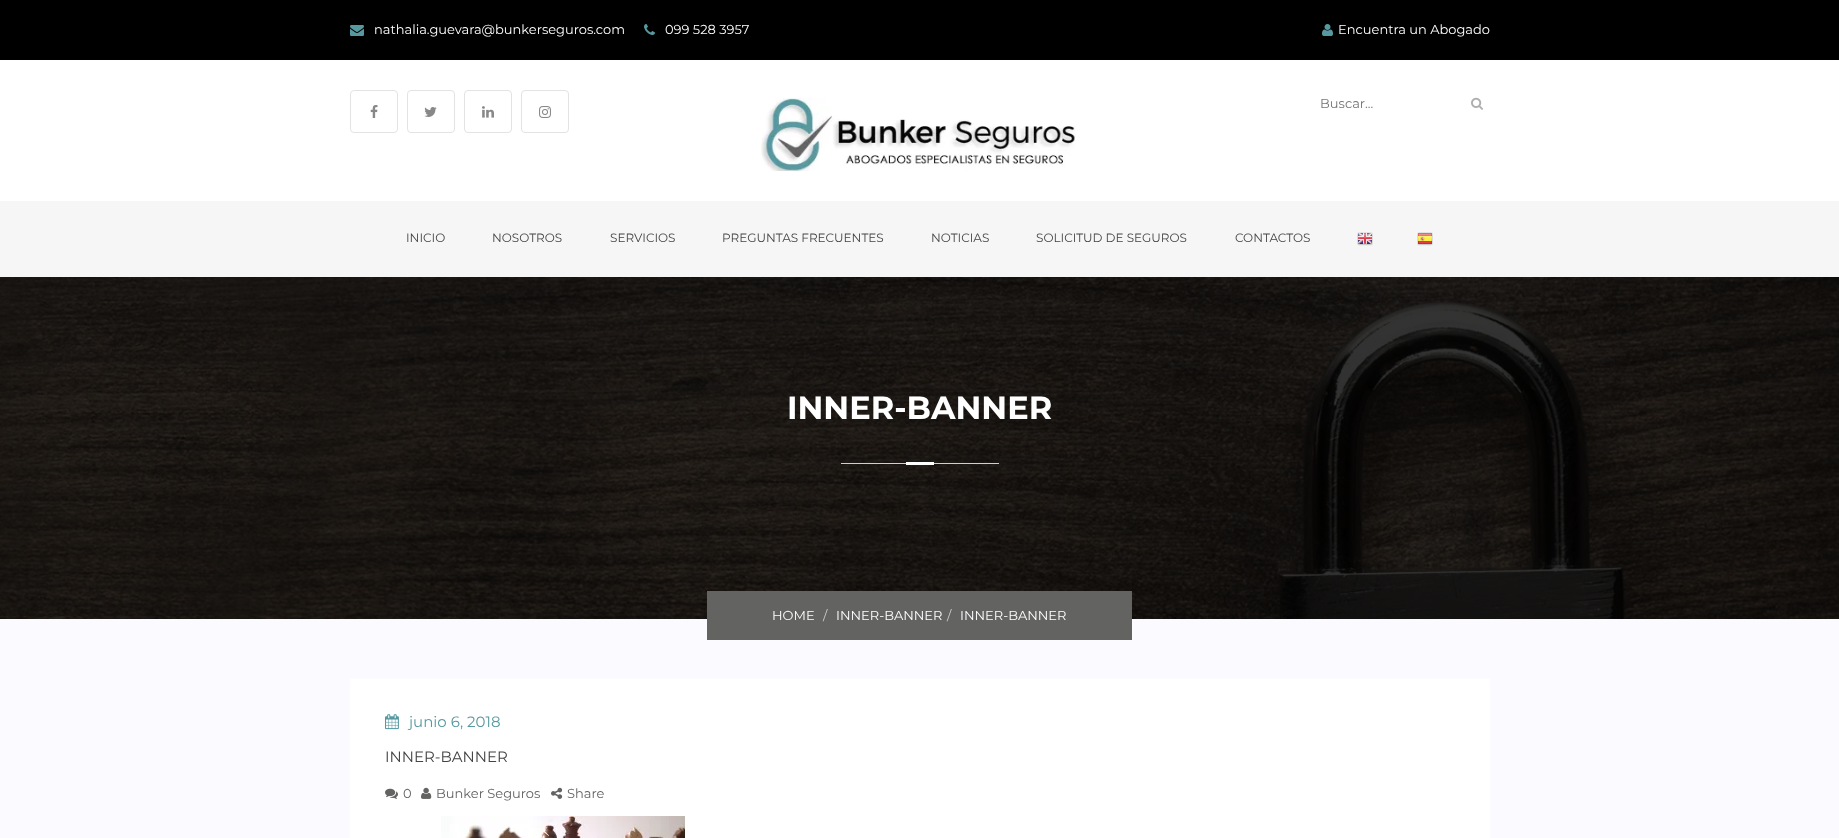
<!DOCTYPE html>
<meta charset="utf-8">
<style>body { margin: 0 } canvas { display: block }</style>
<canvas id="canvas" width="1839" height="838"></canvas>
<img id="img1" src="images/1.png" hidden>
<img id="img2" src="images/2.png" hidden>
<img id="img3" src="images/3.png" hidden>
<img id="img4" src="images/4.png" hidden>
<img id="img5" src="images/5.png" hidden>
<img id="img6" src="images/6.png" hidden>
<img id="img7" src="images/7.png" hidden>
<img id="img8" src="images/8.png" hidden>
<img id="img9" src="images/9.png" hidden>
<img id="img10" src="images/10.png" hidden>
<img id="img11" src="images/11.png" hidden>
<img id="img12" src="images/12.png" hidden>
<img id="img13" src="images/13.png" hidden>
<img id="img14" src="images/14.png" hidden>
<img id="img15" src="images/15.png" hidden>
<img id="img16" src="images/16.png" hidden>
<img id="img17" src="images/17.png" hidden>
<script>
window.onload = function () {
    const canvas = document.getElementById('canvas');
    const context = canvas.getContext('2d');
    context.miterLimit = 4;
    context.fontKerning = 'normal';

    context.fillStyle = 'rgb(250, 250, 255)';
    context.fillRect(0, 0, 1839, 838);
    context.fillStyle = 'rgb(0, 0, 0)';
    context.fillRect(0, 0, 1839, 60);
    context.drawImage(document.getElementById('img1'), 350, 25, 14, 11);
    context.drawImage(document.getElementById('img2'), 644, 24, 11, 11);
    context.drawImage(document.getElementById('img3'), 1322, 24, 11, 12);
    context.fillStyle = 'rgb(255, 255, 255)';
    context.fillRect(0, 60, 1839, 141);
    context.beginPath();
    context.roundRect(350.5, 90.5, 47, 42, 3.5);
    context.strokeStyle = 'rgb(227, 227, 227)';
    context.stroke();
    context.drawImage(document.getElementById('img4'), 370, 105, 8, 13);
    context.beginPath();
    context.roundRect(407.5, 90.5, 47, 42, 3.5);
    context.stroke();
    context.drawImage(document.getElementById('img5'), 424, 107, 13, 10);
    context.beginPath();
    context.roundRect(464.5, 90.5, 47, 42, 3.5);
    context.stroke();
    context.drawImage(document.getElementById('img6'), 482, 106, 12, 12);
    context.beginPath();
    context.roundRect(521.5, 90.5, 47, 42, 3.5);
    context.stroke();
    context.drawImage(document.getElementById('img7'), 539, 106, 12, 12);
    context.drawImage(document.getElementById('img8'), 761, 98, 315, 73);
    context.drawImage(document.getElementById('img9'), 1471, 97, 12, 13);
    context.fillStyle = 'rgb(246, 246, 246)';
    context.fillRect(0, 201, 1839, 76);
    context.drawImage(document.getElementById('img10'), 1357, 232, 16, 14);
    context.drawImage(document.getElementById('img11'), 1417, 232, 16, 14);
    context.drawImage(document.getElementById('img12'), 0, 277, 1839, 342);
    context.fillStyle = 'rgb(208, 208, 208)';
    context.fillRect(841, 463, 158, 1);
    context.fillStyle = 'rgb(255, 255, 255)';
    context.fillRect(906, 462, 28, 3);
    context.fillStyle = 'rgb(99, 99, 98)';
    context.fillRect(707, 591, 425, 49);
    context.fillStyle = 'rgb(255, 255, 255)';
    context.fillRect(350, 679, 1140, 159);
    context.drawImage(document.getElementById('img13'), 385, 714, 14, 16);
    context.drawImage(document.getElementById('img14'), 385, 788, 13, 11);
    context.drawImage(document.getElementById('img15'), 421, 787, 11, 12);
    context.drawImage(document.getElementById('img16'), 551, 787, 12, 12);
    context.drawImage(document.getElementById('img17'), 441, 816, 244, 22);
    context.font = '13px Montserrat';
    context.fillText('nathalia.guevara@bunkerseguros.com', 374, 34);
    context.fillText('099 528 3957', 665, 34);
    context.fillText('Encuentra un Abogado', 1338, 34);
    context.fillStyle = 'rgb(117, 117, 117)';
    context.fillText('Buscar...', 1320, 108);
    context.font = '12px Montserrat';
    context.fillStyle = 'rgb(68, 68, 68)';
    context.fillText('INICIO', 406, 242);
    context.fillText('NOSOTROS', 492, 242);
    context.fillText('SERVICIOS', 610, 242);
    context.fillText('PREGUNTAS FRECUENTES', 722, 242);
    context.fillText('NOTICIAS', 931, 242);
    context.fillText('SOLICITUD DE SEGUROS', 1036, 242);
    context.fillText('CONTACTOS', 1235, 242);
    context.font = 'bold 32px Montserrat';
    context.fillStyle = 'rgb(255, 255, 255)';
    context.fillText('INNER-BANNER', 787, 419);
    context.font = '13px Montserrat';
    context.fillText('HOME', 772, 620);
    context.fillStyle = 'rgb(204, 204, 204)';
    context.fillText('/', 823, 620);
    context.fillStyle = 'rgb(255, 255, 255)';
    context.fillText('INNER-BANNER', 836, 620);
    context.fillStyle = 'rgb(204, 204, 204)';
    context.fillText('/', 947, 620);
    context.fillStyle = 'rgb(255, 255, 255)';
    context.fillText('INNER-BANNER', 960, 620);
    context.font = '15px Montserrat';
    context.fillStyle = 'rgb(87, 153, 160)';
    context.fillText('junio 6, 2018', 409, 727);
    context.fillStyle = 'rgb(68, 68, 68)';
    context.fillText('INNER-BANNER', 385, 762);
    context.font = '13px Montserrat';
    context.fillStyle = 'rgb(99, 99, 98)';
    context.fillText('0', 403, 798);
    context.fillText('Bunker Seguros', 436, 798);
    context.fillText('Share', 567, 798);
};
</script>
